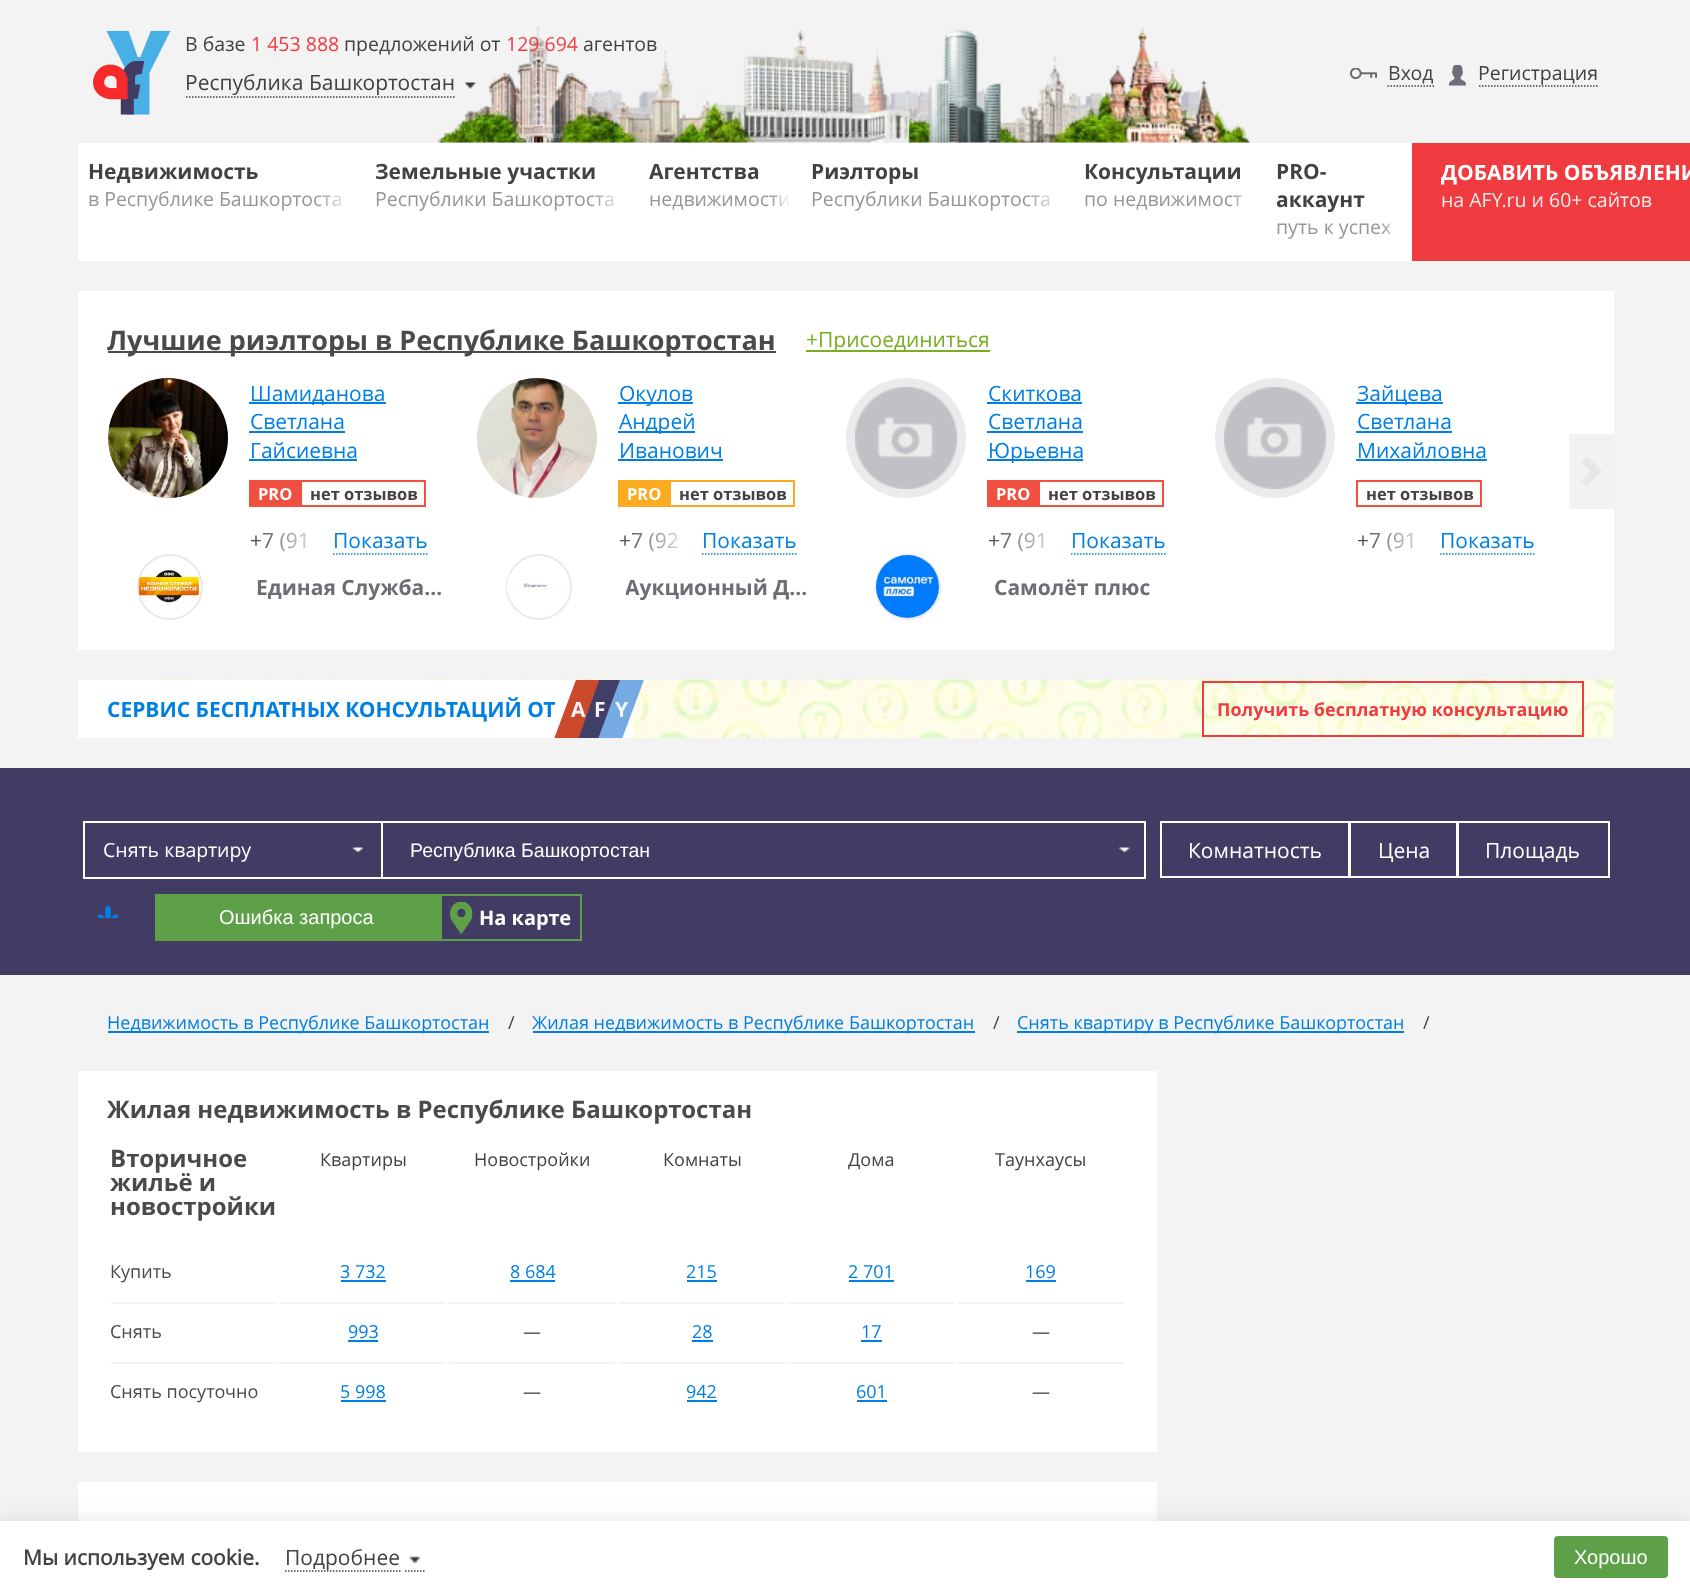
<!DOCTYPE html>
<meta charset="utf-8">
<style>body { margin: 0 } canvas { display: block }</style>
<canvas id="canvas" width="1690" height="1593"></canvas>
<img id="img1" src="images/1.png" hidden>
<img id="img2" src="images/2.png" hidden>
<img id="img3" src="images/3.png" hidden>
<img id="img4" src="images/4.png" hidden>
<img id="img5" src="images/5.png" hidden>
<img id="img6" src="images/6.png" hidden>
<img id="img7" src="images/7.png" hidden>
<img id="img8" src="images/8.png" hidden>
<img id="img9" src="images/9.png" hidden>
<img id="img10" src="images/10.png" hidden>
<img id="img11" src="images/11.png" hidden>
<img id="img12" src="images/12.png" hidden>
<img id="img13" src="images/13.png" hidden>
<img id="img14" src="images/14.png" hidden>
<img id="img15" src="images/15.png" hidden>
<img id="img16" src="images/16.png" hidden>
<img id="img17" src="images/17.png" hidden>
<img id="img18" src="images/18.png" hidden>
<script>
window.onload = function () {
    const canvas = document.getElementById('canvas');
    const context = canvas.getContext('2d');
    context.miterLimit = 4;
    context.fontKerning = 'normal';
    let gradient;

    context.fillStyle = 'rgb(243, 243, 243)';
    context.fillRect(0, 0, 1690, 1593);
    context.drawImage(document.getElementById('img1'), 437, 27, 813, 116);
    context.drawImage(document.getElementById('img2'), 93, 30, 78, 85);
    context.beginPath();
    context.moveTo(186, 97);
    context.lineTo(456, 97);
    context.strokeStyle = 'rgb(66, 66, 66)';
    context.lineWidth = 1.5;
    context.setLineDash([1.5, 1.5]);
    context.stroke();
    context.drawImage(document.getElementById('img3'), 465, 82, 11, 7);
    context.drawImage(document.getElementById('img4'), 1350, 68, 27, 12);
    context.beginPath();
    context.moveTo(1387.5, 86);
    context.lineTo(1434, 86);
    context.stroke();
    context.drawImage(document.getElementById('img5'), 1449, 65, 17, 21);
    context.beginPath();
    context.moveTo(1479, 86);
    context.lineTo(1599, 86);
    context.stroke();
    context.fillStyle = 'rgb(255, 255, 255)';
    context.fillRect(78, 143, 1334, 118);
    context.fillStyle = 'rgb(240, 60, 64)';
    context.fillRect(1412, 143, 278, 118);
    context.fillStyle = 'rgb(255, 255, 255)';
    context.fillRect(78, 291, 1536, 359);
    context.fillStyle = 'rgb(74, 74, 74)';
    context.fillRect(108, 351, 668, 2);
    context.fillStyle = 'rgb(121, 174, 35)';
    context.fillRect(806, 350, 184, 2);
    context.drawImage(document.getElementById('img6'), 108, 378, 120, 120);
    context.fillStyle = 'rgb(0, 127, 227)';
    context.fillRect(249, 402, 137, 2);
    context.fillRect(249, 431, 96, 2);
    context.fillRect(249, 459, 108, 2);
    context.fillStyle = 'rgb(241, 79, 63)';
    context.fillRect(249, 480, 51, 27);
    context.strokeStyle = 'rgb(241, 79, 63)';
    context.lineWidth = 2;
    context.setLineDash([]);
    context.strokeRect(301, 481, 124, 25);
    context.beginPath();
    context.moveTo(333, 554);
    context.lineTo(427.5, 554);
    context.strokeStyle = 'rgb(0, 127, 227)';
    context.lineWidth = 1.5;
    context.setLineDash([1.5, 1.5]);
    context.stroke();
    context.beginPath();
    context.arc(170, 587, 32, 0, 2 * Math.PI);
    context.strokeStyle = 'rgb(233, 233, 233)';
    context.lineWidth = 2;
    context.setLineDash([]);
    context.stroke();
    context.drawImage(document.getElementById('img7'), 138, 570, 61, 33);
    context.drawImage(document.getElementById('img8'), 477, 378, 120, 120);
    context.fillStyle = 'rgb(0, 127, 227)';
    context.fillRect(618, 402, 75, 2);
    context.fillRect(618, 431, 77, 2);
    context.fillRect(618, 459, 105, 2);
    context.fillStyle = 'rgb(251, 171, 32)';
    context.fillRect(618, 480, 51, 27);
    context.strokeStyle = 'rgb(251, 171, 32)';
    context.strokeRect(670, 481, 124, 25);
    context.beginPath();
    context.moveTo(702, 554);
    context.lineTo(796.5, 554);
    context.strokeStyle = 'rgb(0, 127, 227)';
    context.lineWidth = 1.5;
    context.setLineDash([1.5, 1.5]);
    context.stroke();
    context.beginPath();
    context.arc(539, 587, 32, 0, 2 * Math.PI);
    context.strokeStyle = 'rgb(233, 233, 233)';
    context.lineWidth = 2;
    context.setLineDash([]);
    context.stroke();
    context.drawImage(document.getElementById('img9'), 507, 574, 63, 25);
    context.fillStyle = 'rgb(235, 235, 235)';
    context.beginPath();
    context.arc(906, 438, 60, 0, 2 * Math.PI);
    context.fill();
    context.drawImage(document.getElementById('img10'), 855, 387, 102, 102);
    context.fillStyle = 'rgb(0, 127, 227)';
    context.fillRect(987, 402, 95, 2);
    context.fillRect(987, 431, 96, 2);
    context.fillRect(987, 459, 96, 2);
    context.fillStyle = 'rgb(241, 79, 63)';
    context.fillRect(987, 480, 51, 27);
    context.strokeStyle = 'rgb(241, 79, 63)';
    context.strokeRect(1039, 481, 124, 25);
    context.beginPath();
    context.moveTo(1071, 554);
    context.lineTo(1165.5, 554);
    context.strokeStyle = 'rgb(0, 127, 227)';
    context.lineWidth = 1.5;
    context.setLineDash([1.5, 1.5]);
    context.stroke();
    context.beginPath();
    context.arc(908, 587, 32, 0, 2 * Math.PI);
    context.strokeStyle = 'rgb(233, 233, 233)';
    context.lineWidth = 2;
    context.setLineDash([]);
    context.stroke();
    context.drawImage(document.getElementById('img11'), 876, 555, 63, 63);
    context.fillStyle = 'rgb(235, 235, 235)';
    context.beginPath();
    context.arc(1275, 438, 60, 0, 2 * Math.PI);
    context.fill();
    context.drawImage(document.getElementById('img12'), 1224, 387, 102, 102);
    context.fillStyle = 'rgb(0, 127, 227)';
    context.fillRect(1356, 402, 87, 2);
    context.fillRect(1356, 431, 96, 2);
    context.fillRect(1356, 459, 131, 2);
    context.strokeStyle = 'rgb(241, 79, 63)';
    context.strokeRect(1357, 481, 124, 25);
    context.beginPath();
    context.moveTo(1440, 554);
    context.lineTo(1534.5, 554);
    context.strokeStyle = 'rgb(0, 127, 227)';
    context.lineWidth = 1.5;
    context.setLineDash([1.5, 1.5]);
    context.stroke();
    context.fillStyle = 'rgb(242, 242, 242)';
    context.fillRect(1569, 434, 45, 75);
    context.fillStyle = 'rgb(231, 231, 231)';
    context.beginPath();
    context.moveTo(1587, 456);
    context.lineTo(1581, 461.5);
    context.lineTo(1590.5, 471);
    context.lineTo(1581, 480.5);
    context.lineTo(1587, 486);
    context.lineTo(1602, 471);
    context.closePath();
    context.fill();
    context.drawImage(document.getElementById('img13'), 78, 679, 1536, 59);
    context.fillStyle = 'rgb(255, 255, 255)';
    context.fillRect(78, 680, 555, 58);
    context.strokeStyle = 'rgb(240, 60, 64)';
    context.lineWidth = 2;
    context.setLineDash([]);
    context.strokeRect(1203, 682, 380, 54);
    context.fillStyle = 'rgb(66, 60, 101)';
    context.fillRect(0, 768, 1690, 207);
    context.strokeStyle = 'rgb(255, 255, 255)';
    context.strokeRect(84, 822, 298, 56);
    context.drawImage(document.getElementById('img14'), 352, 847, 11, 5);
    context.strokeRect(382, 822, 763, 56);
    context.drawImage(document.getElementById('img15'), 1119, 847, 11, 5);
    context.strokeRect(1161, 822, 188, 55);
    context.strokeRect(1350, 822, 107, 55);
    context.strokeRect(1458, 822, 151, 55);
    context.drawImage(document.getElementById('img16'), 98, 906, 21, 12);
    context.fillStyle = 'rgb(93, 160, 72)';
    context.fillRect(155, 894, 285, 47);
    context.strokeStyle = 'rgb(93, 160, 72)';
    context.strokeRect(441, 895, 140, 45);
    context.drawImage(document.getElementById('img17'), 450, 902, 23, 33);
    context.fillStyle = 'rgb(0, 127, 227)';
    context.fillRect(108, 1031, 381, 2);
    context.fillRect(533, 1031, 442, 2);
    context.fillRect(1017, 1031, 387, 2);
    context.fillStyle = 'rgb(255, 255, 255)';
    context.fillRect(78, 1071, 1079, 381);
    context.fillStyle = 'rgb(0, 127, 227)';
    context.fillRect(341, 1280, 45, 2);
    context.fillRect(510, 1280, 45, 2);
    context.fillRect(687, 1280, 30, 2);
    context.fillRect(849, 1280, 45, 2);
    context.fillRect(1026, 1280, 30, 2);
    context.fillStyle = 'rgb(243, 243, 243)';
    context.fillRect(111, 1302, 165, 2);
    context.fillRect(279, 1302, 167, 2);
    context.fillStyle = 'rgb(0, 127, 227)';
    context.fillRect(348, 1340, 30, 2);
    context.fillStyle = 'rgb(243, 243, 243)';
    context.fillRect(449, 1302, 166, 2);
    context.fillRect(618, 1302, 167, 2);
    context.fillStyle = 'rgb(0, 127, 227)';
    context.fillRect(692, 1340, 21, 2);
    context.fillStyle = 'rgb(243, 243, 243)';
    context.fillRect(788, 1302, 166, 2);
    context.fillStyle = 'rgb(0, 127, 227)';
    context.fillRect(861, 1340, 21, 2);
    context.fillStyle = 'rgb(243, 243, 243)';
    context.fillRect(957, 1302, 167, 2);
    context.fillRect(111, 1362, 165, 2);
    context.fillRect(279, 1362, 167, 2);
    context.fillStyle = 'rgb(0, 127, 227)';
    context.fillRect(341, 1400, 45, 2);
    context.fillStyle = 'rgb(243, 243, 243)';
    context.fillRect(449, 1362, 166, 2);
    context.fillRect(618, 1362, 167, 2);
    context.fillStyle = 'rgb(0, 127, 227)';
    context.fillRect(687, 1400, 30, 2);
    context.fillStyle = 'rgb(243, 243, 243)';
    context.fillRect(788, 1362, 166, 2);
    context.fillStyle = 'rgb(0, 127, 227)';
    context.fillRect(857, 1400, 30, 2);
    context.fillStyle = 'rgb(243, 243, 243)';
    context.fillRect(957, 1362, 167, 2);
    context.fillStyle = 'rgb(255, 255, 255)';
    context.fillRect(78, 1482, 1079, 39);
    context.fillStyle = 'rgba(36, 38, 41, 0.16)';
    context.filter = 'blur(12px)';
    context.beginPath();
    context.rect(0, 1524, 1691, 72);
    context.fill();
    context.filter = 'none';
    context.fillStyle = 'rgb(255, 255, 255)';
    context.fillRect(0, 1521, 1690, 72);
    context.beginPath();
    context.moveTo(285, 1571);
    context.lineTo(400.5, 1571);
    context.strokeStyle = 'rgb(66, 66, 66)';
    context.lineWidth = 1.5;
    context.setLineDash([1.5, 1.5]);
    context.stroke();
    context.beginPath();
    context.moveTo(405, 1571);
    context.lineTo(426, 1571);
    context.stroke();
    context.drawImage(document.getElementById('img18'), 408, 1556, 13, 8);
    context.fillStyle = 'rgb(93, 160, 72)';
    context.beginPath();
    context.roundRect(1554, 1536, 114, 42, 4);
    context.fill();
    context.font = '19.5px Open Sans';
    context.fillStyle = 'rgb(66, 66, 66)';
    context.fillText('В базе', 185, 51);
    context.fillStyle = 'rgb(240, 60, 64)';
    context.fillText('1 453 888', 251, 51);
    context.fillStyle = 'rgb(66, 66, 66)';
    context.fillText('предложений от', 344, 51);
    context.fillStyle = 'rgb(240, 60, 64)';
    context.fillText('129 694', 506, 51);
    context.fillStyle = 'rgb(66, 66, 66)';
    context.fillText('агентов', 583, 51);
    context.font = '21px Open Sans';
    context.fillText('Республика Башкортостан', 185, 90);
    context.font = '19.5px Open Sans';
    context.fillText('Вход', 1388, 80);
    context.fillText('Регистрация', 1478, 80);
    context.font = 'bold 21px Open Sans';
    context.fillText('Недвижимость', 88, 179);
    context.font = '19.5px Open Sans';
    context.fillStyle = 'rgb(150, 150, 150)';
    context.fillText('в Республике Башкортоста', 88, 206);
    gradient = context.createLinearGradient(315, 198, 354, 198);
    gradient.addColorStop(0, 'rgba(255, 255, 255, 0)');
    gradient.addColorStop(1, 'rgb(255, 255, 255)');
    context.fillStyle = gradient;
    context.fillRect(316, 195, 25, 12);
    context.font = 'bold 21px Open Sans';
    context.fillStyle = 'rgb(66, 66, 66)';
    context.fillText('Земельные участки', 375, 179);
    context.font = '19.5px Open Sans';
    context.fillStyle = 'rgb(150, 150, 150)';
    context.fillText('Республики Башкортоста', 375, 206);
    gradient = context.createLinearGradient(590, 198, 627, 198);
    gradient.addColorStop(0, 'rgba(255, 255, 255, 0)');
    gradient.addColorStop(1, 'rgb(255, 255, 255)');
    context.fillStyle = gradient;
    context.fillRect(591, 195, 23, 12);
    context.font = 'bold 21px Open Sans';
    context.fillStyle = 'rgb(66, 66, 66)';
    context.fillText('Агентства', 649, 179);
    context.font = '19.5px Open Sans';
    context.fillStyle = 'rgb(150, 150, 150)';
    context.fillText('недвижимости', 649, 206);
    gradient = context.createLinearGradient(770, 198, 791, 198);
    gradient.addColorStop(0, 'rgba(255, 255, 255, 0)');
    gradient.addColorStop(1, 'rgb(255, 255, 255)');
    context.fillStyle = gradient;
    context.fillRect(771, 195, 18, 11);
    context.font = 'bold 21px Open Sans';
    context.fillStyle = 'rgb(66, 66, 66)';
    context.fillText('Риэлторы', 811, 179);
    context.font = '19.5px Open Sans';
    context.fillStyle = 'rgb(150, 150, 150)';
    context.fillText('Республики Башкортоста', 811, 206);
    gradient = context.createLinearGradient(1026, 198, 1064, 198);
    gradient.addColorStop(0, 'rgba(255, 255, 255, 0)');
    gradient.addColorStop(1, 'rgb(255, 255, 255)');
    context.fillStyle = gradient;
    context.fillRect(1027, 195, 23, 12);
    context.font = 'bold 21px Open Sans';
    context.fillStyle = 'rgb(66, 66, 66)';
    context.fillText('Консультации', 1084, 179);
    context.font = '19.5px Open Sans';
    context.fillStyle = 'rgb(150, 150, 150)';
    context.fillText('по недвижимост', 1084, 206);
    gradient = context.createLinearGradient(1230, 198, 1256, 198);
    gradient.addColorStop(0, 'rgba(255, 255, 255, 0)');
    gradient.addColorStop(1, 'rgb(255, 255, 255)');
    context.fillStyle = gradient;
    context.fillRect(1231, 195, 12, 11);
    context.font = 'bold 21px Open Sans';
    context.fillStyle = 'rgb(66, 66, 66)';
    context.fillText('PRO-', 1276, 179);
    context.fillText('аккаунт', 1276, 207);
    context.font = '19.5px Open Sans';
    context.fillStyle = 'rgb(150, 150, 150)';
    context.fillText('путь к успех', 1276, 234);
    gradient = context.createLinearGradient(1382, 227, 1401, 227);
    gradient.addColorStop(0, 'rgba(255, 255, 255, 0)');
    gradient.addColorStop(1, 'rgb(255, 255, 255)');
    context.fillStyle = gradient;
    context.fillRect(1382, 223, 9, 11);
    context.font = 'bold 21px Open Sans';
    context.fillStyle = 'rgb(255, 255, 255)';
    context.fillText('ДОБАВИТЬ ОБЪЯВЛЕНИ', 1441, 180);
    context.font = '19.5px Open Sans';
    context.fillStyle = 'rgb(235, 235, 235)';
    context.fillText('на AFY.ru и 60+ сайтов', 1441, 207);
    context.font = 'bold 27px Open Sans';
    context.fillStyle = 'rgb(74, 74, 74)';
    context.fillText('Лучшие риэлторы в Республике Башкортостан', 107, 350);
    context.font = '21px Open Sans';
    context.fillStyle = 'rgb(121, 174, 35)';
    context.fillText('+Присоединиться', 806, 347);
    context.fillStyle = 'rgb(0, 127, 227)';
    context.fillText('Шамиданова', 250, 401);
    context.fillText('Светлана', 250, 429);
    context.fillText('Гайсиевна', 250, 458);
    context.font = 'bold 16.5px Open Sans';
    context.fillStyle = 'rgb(255, 255, 255)';
    context.fillText('PRO', 258, 500);
    context.fillStyle = 'rgb(66, 66, 66)';
    context.fillText('нет отзывов', 310, 500);
    context.font = '21px Open Sans';
    context.fillText('+7 (91', 250, 548);
    gradient = context.createLinearGradient(249, 539, 327, 539);
    gradient.addColorStop(0, 'rgba(255, 255, 255, 0)');
    gradient.addColorStop(1, 'rgb(255, 255, 255)');
    context.fillStyle = gradient;
    context.fillRect(251, 532, 54, 20);
    context.fillStyle = 'rgb(0, 127, 227)';
    context.fillText('Показать', 333, 548);
    context.font = 'bold 21px Open Sans';
    context.fillStyle = 'rgb(109, 109, 117)';
    context.fillText('Единая Служба…', 256, 595);
    context.font = '21px Open Sans';
    context.fillStyle = 'rgb(0, 127, 227)';
    context.fillText('Окулов', 619, 401);
    context.fillText('Андрей', 619, 429);
    context.fillText('Иванович', 619, 458);
    context.font = 'bold 16.5px Open Sans';
    context.fillStyle = 'rgb(255, 255, 255)';
    context.fillText('PRO', 627, 500);
    context.fillStyle = 'rgb(66, 66, 66)';
    context.fillText('нет отзывов', 679, 500);
    context.font = '21px Open Sans';
    context.fillText('+7 (92', 619, 548);
    gradient = context.createLinearGradient(618, 539, 696, 539);
    gradient.addColorStop(0, 'rgba(255, 255, 255, 0)');
    gradient.addColorStop(1, 'rgb(255, 255, 255)');
    context.fillStyle = gradient;
    context.fillRect(620, 532, 58, 20);
    context.fillStyle = 'rgb(0, 127, 227)';
    context.fillText('Показать', 702, 548);
    context.save();
    context.beginPath();
    context.rect(626, 573, 189, 29);
    context.clip();
    context.font = 'bold 21px Open Sans';
    context.fillStyle = 'rgb(109, 109, 117)';
    context.fillText('Аукционный Д…', 625, 595);
    context.restore();
    context.fillText('Скиткова', 988, 401);
    context.fillText('Светлана', 988, 429);
    context.fillText('Юрьевна', 988, 458);
    context.font = 'bold 16.5px Open Sans';
    context.fillStyle = 'rgb(255, 255, 255)';
    context.fillText('PRO', 996, 500);
    context.fillStyle = 'rgb(66, 66, 66)';
    context.fillText('нет отзывов', 1048, 500);
    context.font = '21px Open Sans';
    context.fillText('+7 (91', 988, 548);
    gradient = context.createLinearGradient(987, 539, 1065, 539);
    gradient.addColorStop(0, 'rgba(255, 255, 255, 0)');
    gradient.addColorStop(1, 'rgb(255, 255, 255)');
    context.fillStyle = gradient;
    context.fillRect(989, 532, 54, 20);
    context.fillStyle = 'rgb(0, 127, 227)';
    context.fillText('Показать', 1071, 548);
    context.font = 'bold 21px Open Sans';
    context.fillStyle = 'rgb(109, 109, 117)';
    context.fillText('Самолёт плюс', 994, 595);
    context.font = '21px Open Sans';
    context.fillStyle = 'rgb(0, 127, 227)';
    context.fillText('Зайцева', 1357, 401);
    context.fillText('Светлана', 1357, 429);
    context.fillText('Михайловна', 1357, 458);
    context.font = 'bold 16.5px Open Sans';
    context.fillStyle = 'rgb(66, 66, 66)';
    context.fillText('нет отзывов', 1366, 500);
    context.font = '21px Open Sans';
    context.fillText('+7 (91', 1357, 548);
    gradient = context.createLinearGradient(1356, 539, 1434, 539);
    gradient.addColorStop(0, 'rgba(255, 255, 255, 0)');
    gradient.addColorStop(1, 'rgb(255, 255, 255)');
    context.fillStyle = gradient;
    context.fillRect(1358, 532, 54, 20);
    context.fillStyle = 'rgb(0, 127, 227)';
    context.fillText('Показать', 1440, 548);
    context.font = 'bold 21px Open Sans';
    context.fillText('СЕРВИС БЕСПЛАТНЫХ КОНСУЛЬТАЦИЙ ОТ', 107, 717);
    context.save();
    context.beginPath();
    context.rect(78, 680, 1536, 58);
    context.clip();
    context.fillStyle = 'rgb(204, 74, 44)';
    context.beginPath();
    context.moveTo(580, 669);
    context.lineTo(602, 677);
    context.lineTo(576, 747);
    context.lineTo(554, 739);
    context.closePath();
    context.fill();
    context.restore();
    context.fillStyle = 'rgb(244, 244, 244)';
    context.fillText('A', 571, 717);
    context.save();
    context.beginPath();
    context.rect(78, 680, 1536, 58);
    context.clip();
    context.fillStyle = 'rgb(65, 62, 104)';
    context.beginPath();
    context.moveTo(603, 669);
    context.lineTo(623, 676);
    context.lineTo(597, 747);
    context.lineTo(578, 740);
    context.closePath();
    context.fill();
    context.restore();
    context.fillText('F', 594, 717);
    context.save();
    context.beginPath();
    context.rect(78, 680, 1536, 58);
    context.clip();
    context.fillStyle = 'rgb(117, 170, 226)';
    context.beginPath();
    context.moveTo(624, 669);
    context.lineTo(645, 677);
    context.lineTo(619, 747);
    context.lineTo(598, 739);
    context.closePath();
    context.fill();
    context.restore();
    context.fillText('Y', 615, 717);
    context.font = 'bold 18px Open Sans';
    context.fillStyle = 'rgb(240, 60, 64)';
    context.fillText('Получить бесплатную консультацию', 1217, 716);
    context.font = '19.5px Open Sans';
    context.fillStyle = 'rgb(255, 255, 255)';
    context.fillText('Снять квартиру', 103, 857);
    context.font = '19.5px Liberation Sans';
    context.fillText('Республика Башкортостан', 410, 857);
    context.font = '21px Open Sans';
    context.fillText('Комнатность', 1188, 858);
    context.fillText('Цена', 1378, 858);
    context.fillText('Площадь', 1485, 858);
    context.font = '20px Liberation Sans';
    context.fillText('Ошибка запроса', 219, 924);
    context.font = 'bold 20px Open Sans';
    context.fillText('На карте', 479, 925);
    context.font = '18px Open Sans';
    context.fillStyle = 'rgb(0, 127, 227)';
    context.fillText('Недвижимость в Республике Башкортостан', 107, 1029);
    context.fillStyle = 'rgb(66, 66, 66)';
    context.fillText('/', 508, 1029);
    context.fillStyle = 'rgb(0, 127, 227)';
    context.fillText('Жилая недвижимость в Республике Башкортостан', 532, 1029);
    context.fillStyle = 'rgb(66, 66, 66)';
    context.fillText('/', 993, 1029);
    context.fillStyle = 'rgb(0, 127, 227)';
    context.fillText('Снять квартиру в Республике Башкортостан', 1017, 1029);
    context.fillStyle = 'rgb(66, 66, 66)';
    context.fillText('/', 1423, 1029);
    context.font = 'bold 24px Open Sans';
    context.fillStyle = 'rgb(74, 74, 74)';
    context.fillText('Жилая недвижимость в Республике Башкортостан', 107, 1118);
    context.fillText('Вторичное', 110, 1167);
    context.fillText('жильё и', 110, 1191);
    context.fillText('новостройки', 110, 1215);
    context.font = '18px Open Sans';
    context.fillStyle = 'rgb(66, 66, 66)';
    context.fillText('Квартиры', 320, 1166);
    context.fillText('Новостройки', 474, 1166);
    context.fillText('Комнаты', 663, 1166);
    context.fillText('Дома', 848, 1166);
    context.fillText('Таунхаусы', 995, 1166);
    context.fillStyle = 'rgb(74, 74, 74)';
    context.fillText('Купить', 110, 1278);
    context.fillStyle = 'rgb(0, 127, 227)';
    context.fillText('3 732', 340, 1278);
    context.fillText('8 684', 510, 1278);
    context.fillText('215', 686, 1278);
    context.fillText('2 701', 848, 1278);
    context.fillText('169', 1025, 1278);
    context.fillStyle = 'rgb(74, 74, 74)';
    context.fillText('Снять', 110, 1338);
    context.fillStyle = 'rgb(0, 127, 227)';
    context.fillText('993', 348, 1338);
    context.fillStyle = 'rgb(74, 74, 74)';
    context.fillText('—', 523, 1338);
    context.fillStyle = 'rgb(0, 127, 227)';
    context.fillText('28', 692, 1338);
    context.fillText('17', 861, 1338);
    context.fillStyle = 'rgb(74, 74, 74)';
    context.fillText('—', 1032, 1338);
    context.fillText('Снять посуточно', 110, 1398);
    context.fillStyle = 'rgb(0, 127, 227)';
    context.fillText('5 998', 340, 1398);
    context.fillStyle = 'rgb(74, 74, 74)';
    context.fillText('—', 523, 1398);
    context.fillStyle = 'rgb(0, 127, 227)';
    context.fillText('942', 686, 1398);
    context.fillText('601', 856, 1398);
    context.fillStyle = 'rgb(74, 74, 74)';
    context.fillText('—', 1032, 1398);
    context.font = 'bold 21px "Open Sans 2"';
    context.fillStyle = 'rgb(66, 66, 66)';
    context.fillText('Мы используем cookie.', 23, 1565);
    context.font = '21px Open Sans';
    context.fillText('Подробнее', 285, 1565);
    context.font = '20px Liberation Sans';
    context.fillStyle = 'rgb(255, 255, 255)';
    context.fillText('Хорошо', 1574, 1564);
};
</script>
